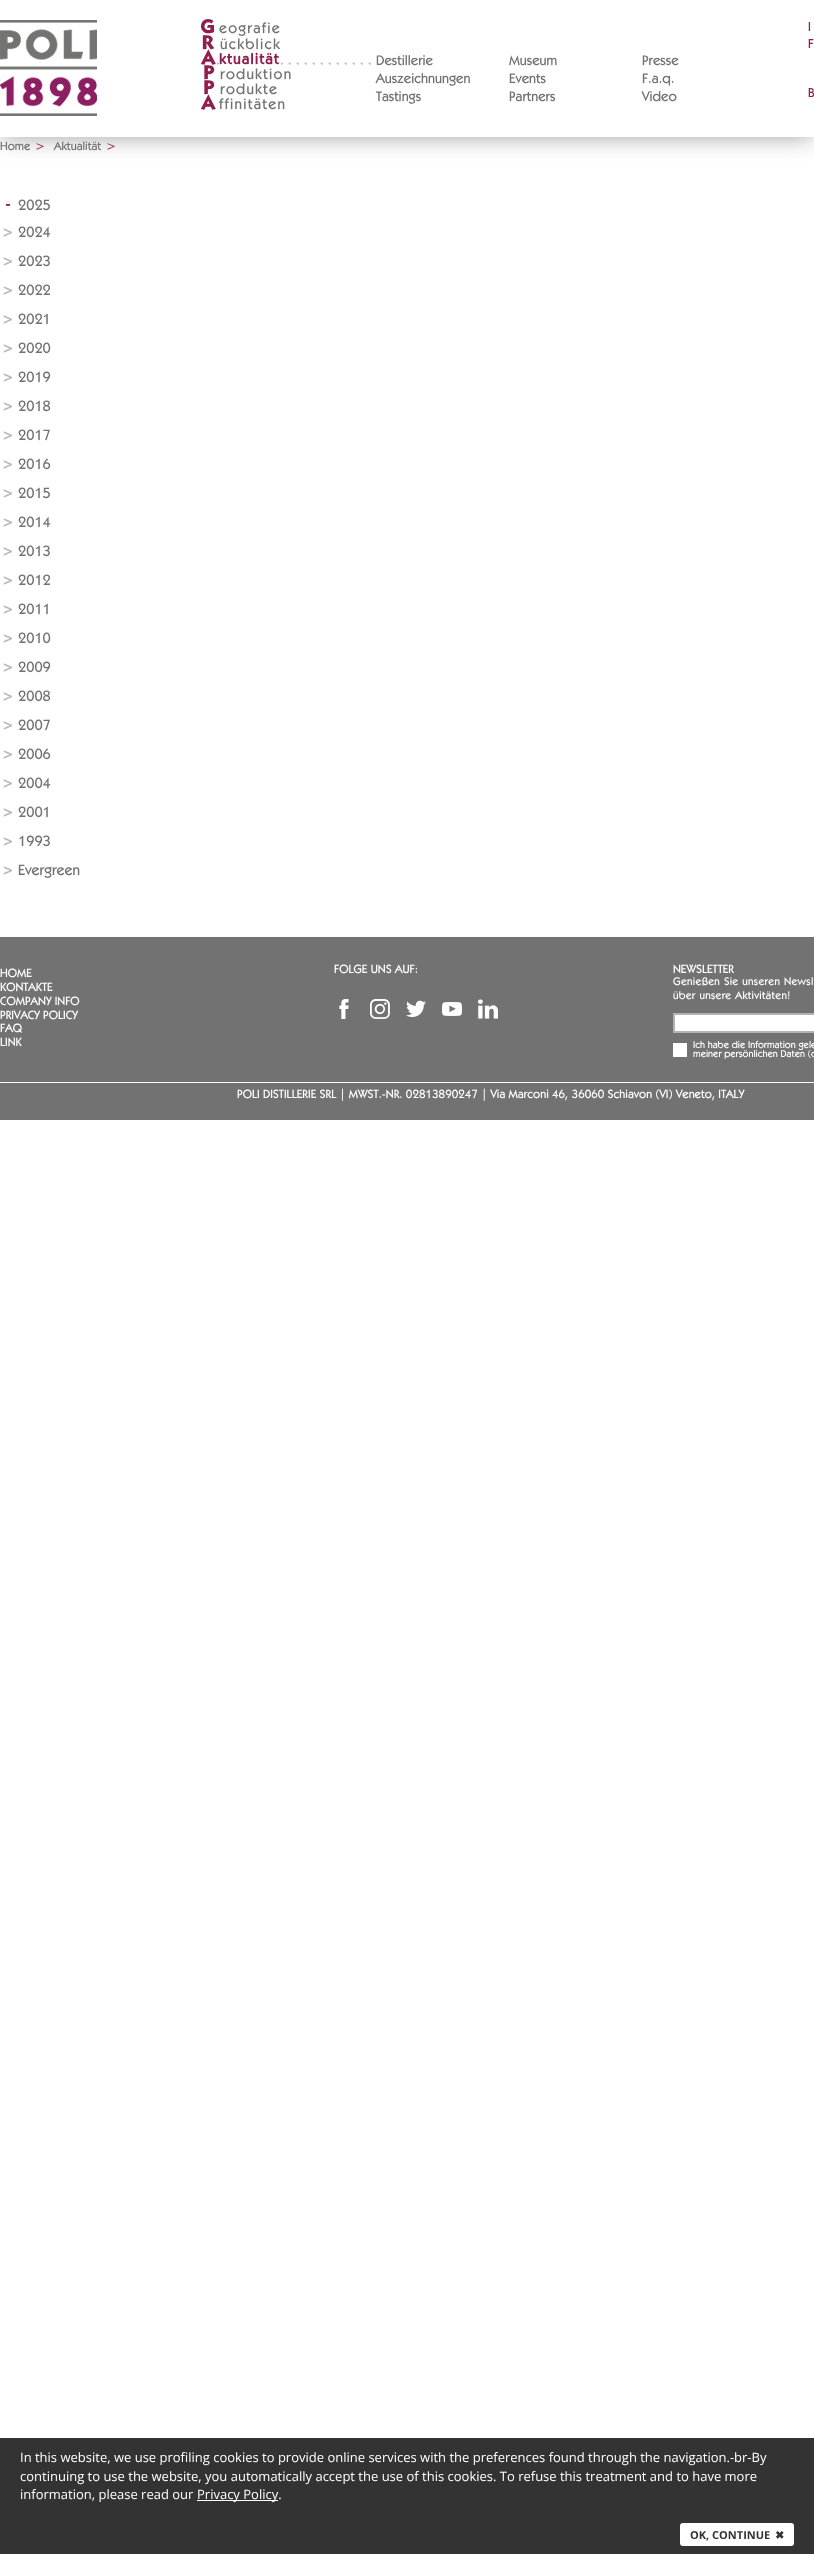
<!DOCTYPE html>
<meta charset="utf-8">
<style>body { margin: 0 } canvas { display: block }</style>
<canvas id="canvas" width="814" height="2554"></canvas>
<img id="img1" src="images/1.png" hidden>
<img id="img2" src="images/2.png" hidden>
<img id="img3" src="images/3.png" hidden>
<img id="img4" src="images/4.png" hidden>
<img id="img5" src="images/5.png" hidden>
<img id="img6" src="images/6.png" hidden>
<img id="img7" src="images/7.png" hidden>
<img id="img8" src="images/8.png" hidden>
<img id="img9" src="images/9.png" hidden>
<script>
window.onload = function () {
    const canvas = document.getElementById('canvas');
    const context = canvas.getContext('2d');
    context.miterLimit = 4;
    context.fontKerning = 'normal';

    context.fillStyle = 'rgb(255, 255, 255)';
    context.fillRect(0, 0, 814, 2554);
    context.save();
    context.beginPath();
    context.rect(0, 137, 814, 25);
    context.clip();
    context.fillStyle = 'rgb(153, 153, 153)';
    context.filter = 'blur(12.5px)';
    context.beginPath();
    context.rect(1, 1, 812, 135);
    context.fill();
    context.filter = 'none';
    context.restore();
    context.drawImage(document.getElementById('img1'), 0, 20, 97, 96);
    context.drawImage(document.getElementById('img2'), 217, 62, 154, 3);
    context.fillRect(224, 62, 57, 3);
    context.drawImage(document.getElementById('img3'), 6, 204, 4, 2);
    context.drawImage(document.getElementById('img4'), 3, 228, 9, 9);
    context.drawImage(document.getElementById('img4'), 3, 257, 9, 9);
    context.drawImage(document.getElementById('img4'), 3, 286, 9, 9);
    context.drawImage(document.getElementById('img4'), 3, 315, 9, 9);
    context.drawImage(document.getElementById('img4'), 3, 344, 9, 9);
    context.drawImage(document.getElementById('img4'), 3, 373, 9, 9);
    context.drawImage(document.getElementById('img4'), 3, 402, 9, 9);
    context.drawImage(document.getElementById('img4'), 3, 431, 9, 9);
    context.drawImage(document.getElementById('img4'), 3, 460, 9, 9);
    context.drawImage(document.getElementById('img4'), 3, 489, 9, 9);
    context.drawImage(document.getElementById('img4'), 3, 518, 9, 9);
    context.drawImage(document.getElementById('img4'), 3, 547, 9, 9);
    context.drawImage(document.getElementById('img4'), 3, 576, 9, 9);
    context.drawImage(document.getElementById('img4'), 3, 605, 9, 9);
    context.drawImage(document.getElementById('img4'), 3, 634, 9, 9);
    context.drawImage(document.getElementById('img4'), 3, 663, 9, 9);
    context.drawImage(document.getElementById('img4'), 3, 692, 9, 9);
    context.drawImage(document.getElementById('img4'), 3, 721, 9, 9);
    context.drawImage(document.getElementById('img4'), 3, 750, 9, 9);
    context.drawImage(document.getElementById('img4'), 3, 779, 9, 9);
    context.drawImage(document.getElementById('img4'), 3, 808, 9, 9);
    context.drawImage(document.getElementById('img4'), 3, 837, 9, 9);
    context.drawImage(document.getElementById('img4'), 3, 866, 9, 9);
    context.fillStyle = 'rgb(114, 114, 114)';
    context.fillRect(0, 937, 814, 183);
    context.drawImage(document.getElementById('img5'), 339, 999, 10, 20);
    context.drawImage(document.getElementById('img6'), 370, 999, 20, 20);
    context.drawImage(document.getElementById('img7'), 406, 1000, 20, 17);
    context.drawImage(document.getElementById('img8'), 442, 1002, 20, 14);
    context.drawImage(document.getElementById('img9'), 478, 999, 20, 20);
    context.fillStyle = 'rgb(255, 255, 255)';
    context.fillRect(675, 1015, 139, 16);
    context.fillStyle = 'rgb(177, 178, 179)';
    context.fillRect(673, 1013, 141, 2);
    context.fillRect(673, 1031, 141, 2);
    context.fillRect(673, 1013, 2, 20);
    context.fillStyle = 'rgb(255, 255, 255)';
    context.fillRect(673, 1043, 14, 14);
    context.fillRect(0, 1082, 814, 1);
    context.fillStyle = 'rgb(51, 51, 51)';
    context.fillRect(0, 2438, 814, 116);
    context.fillStyle = 'rgb(255, 255, 255)';
    context.fillRect(197, 2500, 81, 1);
    context.beginPath();
    context.roundRect(680, 2523, 114, 23, 3);
    context.fill();
    context.letterSpacing = '1.25px';
    context.font = '17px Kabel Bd';
    context.fillStyle = 'rgb(145, 30, 80)';
    context.fillText('G', 200, 33);
    context.font = '500 15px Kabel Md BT';
    context.fillStyle = 'rgb(114, 114, 114)';
    context.fillText('eografie', 219, 33);
    context.font = '17px Kabel Bd';
    context.fillStyle = 'rgb(145, 30, 80)';
    context.fillText('R', 202, 49);
    context.font = '500 15px Kabel Md BT';
    context.fillStyle = 'rgb(114, 114, 114)';
    context.fillText('ückblick', 220, 49);
    context.font = '17px Kabel Bd';
    context.fillStyle = 'rgb(145, 30, 80)';
    context.fillText('A', 200, 64);
    context.font = 'bold 15px Kabel Md BT';
    context.fillText('ktualität', 219, 64);
    context.letterSpacing = '0px';
    context.font = '500 14px Kabel Md BT';
    context.fillStyle = 'rgb(114, 114, 114)';
    context.fillText('Destillerie', 376, 65);
    context.fillText('Auszeichnungen', 376, 83);
    context.fillText('Tastings', 376, 101);
    context.fillText('Museum', 509, 65);
    context.fillText('Events', 509, 83);
    context.fillText('Partners', 509, 101);
    context.fillText('Presse', 642, 65);
    context.fillText('F.a.q.', 642, 83);
    context.fillText('Video', 642, 101);
    context.letterSpacing = '1.25px';
    context.font = '17px Kabel Bd';
    context.fillStyle = 'rgb(145, 30, 80)';
    context.fillText('P', 203, 79);
    context.font = '500 15px Kabel Md BT';
    context.fillStyle = 'rgb(114, 114, 114)';
    context.fillText('roduktion', 220, 79);
    context.font = '17px Kabel Bd';
    context.fillStyle = 'rgb(145, 30, 80)';
    context.fillText('P', 203, 94);
    context.font = '500 15px Kabel Md BT';
    context.fillStyle = 'rgb(114, 114, 114)';
    context.fillText('rodukte', 220, 94);
    context.font = '17px Kabel Bd';
    context.fillStyle = 'rgb(145, 30, 80)';
    context.fillText('A', 200, 109);
    context.font = '500 15px Kabel Md BT';
    context.fillStyle = 'rgb(114, 114, 114)';
    context.fillText('ffinitäten', 219, 109);
    context.letterSpacing = '1px';
    context.font = '500 13px Kabel Md BT';
    context.fillStyle = 'rgb(145, 30, 80)';
    context.fillText('I', 808, 31);
    context.fillText('F', 808, 48);
    context.fillText('B', 808, 97);
    context.letterSpacing = '0px';
    context.font = '500 12px Kabel Md BT';
    context.fillStyle = 'rgb(114, 114, 114)';
    context.fillText('Home', 0, 150);
    context.fillStyle = 'rgb(145, 30, 80)';
    context.fillText('>', 35, 150);
    context.fillStyle = 'rgb(114, 114, 114)';
    context.fillText('Aktualität', 54, 150);
    context.fillStyle = 'rgb(145, 30, 80)';
    context.fillText('>', 106, 150);
    context.font = '500 15px Kabel Md BT';
    context.fillStyle = 'rgb(114, 114, 114)';
    context.fillText('2025', 18, 210);
    context.fillText('2024', 18, 237);
    context.fillText('2023', 18, 266);
    context.fillText('2022', 18, 295);
    context.fillText('2021', 18, 324);
    context.fillText('2020', 18, 353);
    context.fillText('2019', 18, 382);
    context.fillText('2018', 18, 411);
    context.fillText('2017', 18, 440);
    context.fillText('2016', 18, 469);
    context.fillText('2015', 18, 498);
    context.fillText('2014', 18, 527);
    context.fillText('2013', 18, 556);
    context.fillText('2012', 18, 585);
    context.fillText('2011', 18, 614);
    context.fillText('2010', 18, 643);
    context.fillText('2009', 18, 672);
    context.fillText('2008', 18, 701);
    context.fillText('2007', 18, 730);
    context.fillText('2006', 18, 759);
    context.fillText('2004', 18, 788);
    context.fillText('2001', 18, 817);
    context.fillText('1993', 18, 846);
    context.fillText('Evergreen', 18, 875);
    context.font = '500 12px Kabel Md BT';
    context.fillStyle = 'rgb(255, 255, 255)';
    context.fillText('HOME', 0, 977);
    context.fillText('KONTAKTE', 0, 991);
    context.fillText('COMPANY INFO', 0, 1005);
    context.fillText('PRIVACY POLICY', 0, 1019);
    context.fillText('FAQ', 0, 1032);
    context.fillText('LINK', 0, 1046);
    context.fillText('FOLGE UNS AUF:', 334, 973);
    context.fillText('NEWSLETTER', 673, 973);
    context.letterSpacing = '0.3px';
    context.wordSpacing = '0.5px';
    context.font = '500 11px Kabel Md BT';
    context.fillText('Genießen Sie unseren Newsl', 673, 985);
    context.fillText('über unsere Aktivitäten!', 673, 999);
    context.letterSpacing = '0px';
    context.wordSpacing = '0px';
    context.font = '500 10px Kabel Md BT';
    context.fillText('Ich habe die Information gele', 693, 1048);
    context.fillText('meiner persönlichen Daten (o', 693, 1057);
    context.font = '500 12px Kabel Md BT';
    context.fillText('POLI DISTILLERIE SRL | MWST.-NR. 02813890247 | Via Marconi 46, 36060 Schiavon (VI) Veneto, ITALY', 237, 1098);
    context.font = '13px Open Sans';
    context.fillText('In this website, we use profiling cookies to provide online services with the preferences found through the navigation.-br-By', 20, 2462);
    context.fillText('continuing to use the website, you automatically accept the use of this cookies. To refuse this treatment and to have more', 20, 2481);
    context.fillText('information, please read our', 20, 2499);
    context.fillText('Privacy Policy.', 197, 2499);
    context.font = 'bold 11px Open Sans';
    context.fillStyle = 'rgb(51, 51, 51)';
    context.fillText('OK, CONTINUE', 690, 2539);
    context.font = 'bold 11px DejaVu Sans';
    context.fillText('✖', 775, 2539);
};
</script>
